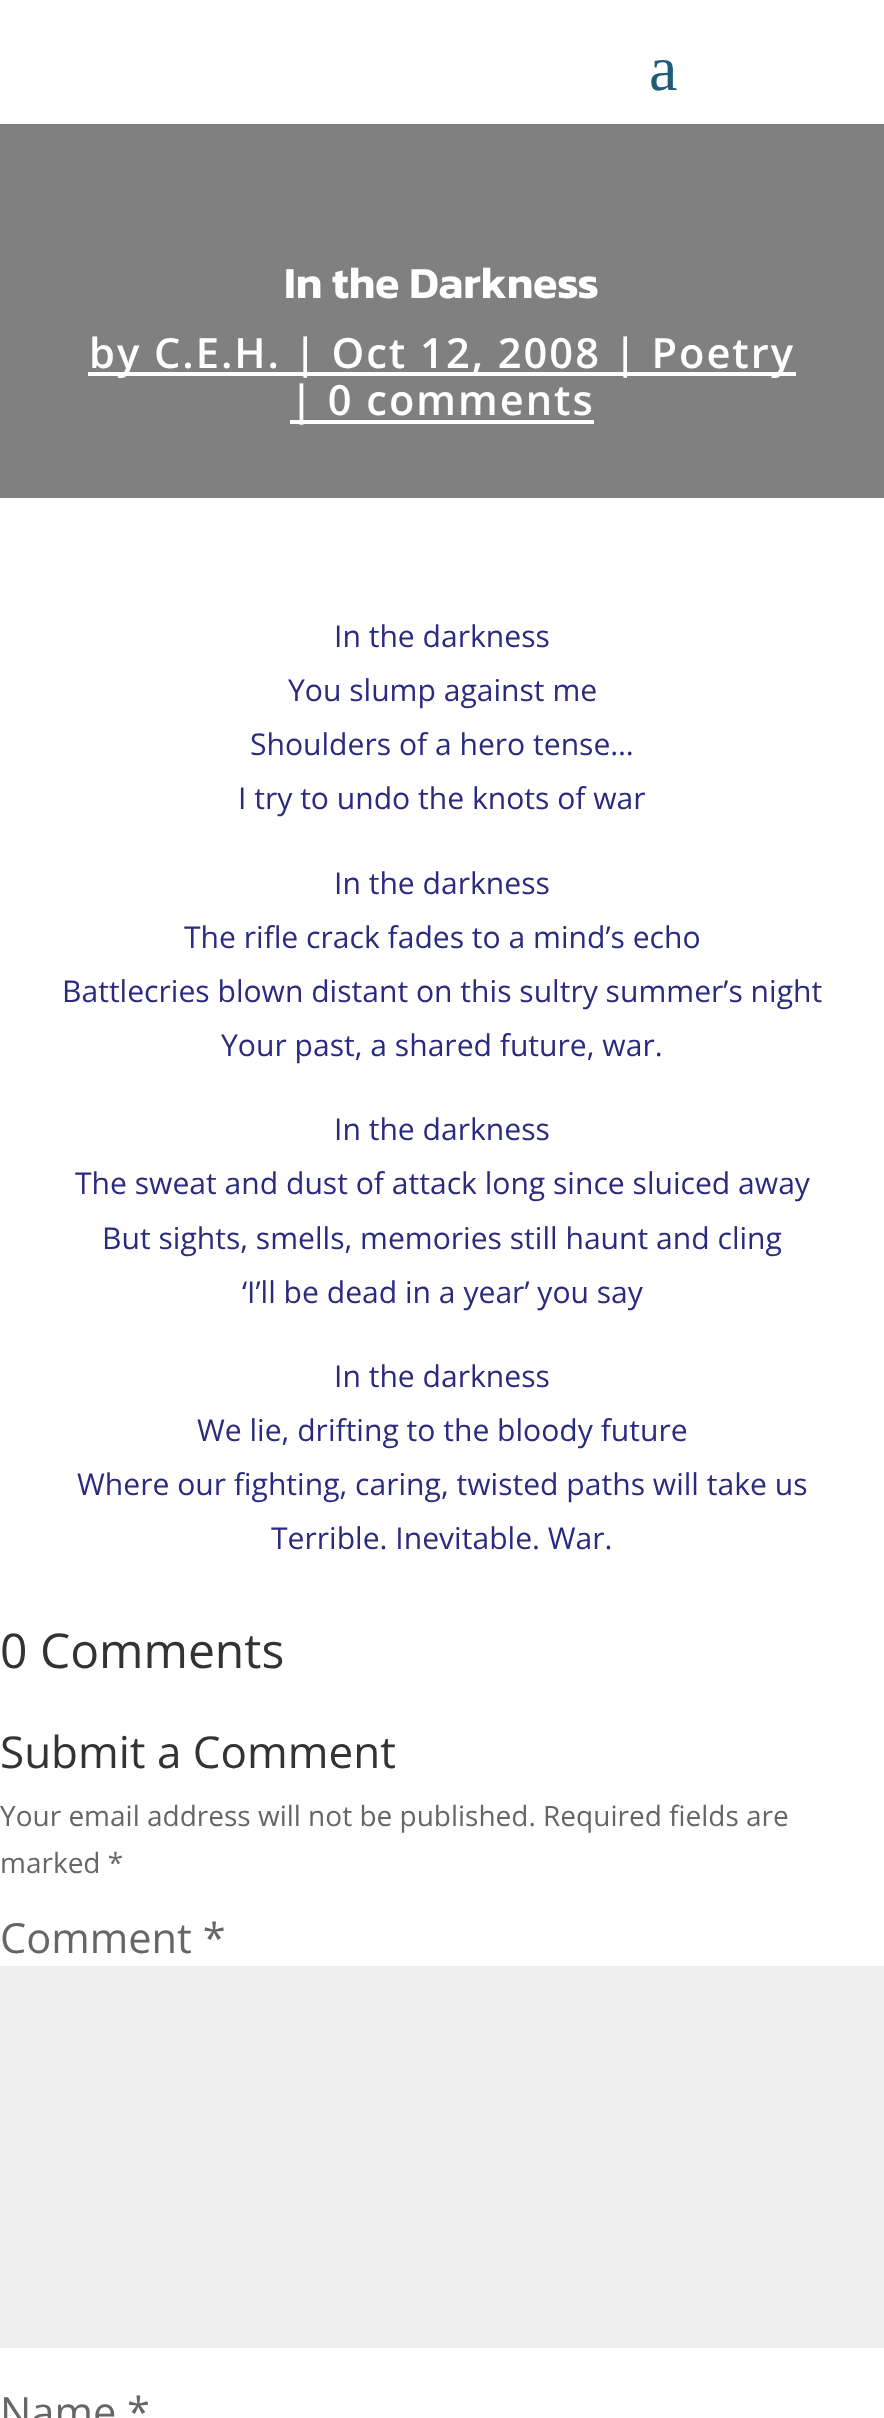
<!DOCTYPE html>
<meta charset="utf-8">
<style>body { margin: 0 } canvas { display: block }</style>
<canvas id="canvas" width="884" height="2418"></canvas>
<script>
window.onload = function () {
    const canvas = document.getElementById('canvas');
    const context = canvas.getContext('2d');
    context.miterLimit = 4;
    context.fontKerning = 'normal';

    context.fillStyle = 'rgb(255, 255, 255)';
    context.fillRect(0, 0, 884, 2418);
    context.fillStyle = 'rgb(128, 128, 128)';
    context.fillRect(0, 124, 884, 374);
    context.fillStyle = 'rgb(255, 255, 255)';
    context.fillRect(88, 372, 708, 4);
    context.fillRect(290, 420, 304, 4);
    context.fillStyle = 'rgb(238, 238, 238)';
    context.fillRect(0, 1966, 884, 382);
    context.font = '64px Liberation Serif';
    context.fillStyle = 'rgb(30, 92, 120)';
    context.fillText('a', 649, 90);
    context.font = '600 44.75px Kanit';
    context.fillStyle = 'rgb(255, 255, 255)';
    context.fillText('In the Darkness', 284, 298);
    context.letterSpacing = '2px';
    context.font = '600 41.6px Open Sans';
    context.fillText('by C.E.H. | Oct 12, 2008 | Poetry', 89, 368);
    context.fillText('| 0 comments', 290, 415);
    context.letterSpacing = '0px';
    context.font = '30.1px Open Sans';
    context.fillStyle = 'rgb(42, 42, 127)';
    context.fillText('In the darkness', 334, 647);
    context.fillText('You slump against me', 288, 701);
    context.fillText('Shoulders of a hero tense…', 250, 755);
    context.fillText('I try to undo the knots of war', 238, 809);
    context.fillText('In the darkness', 334, 894);
    context.fillText('The rifle crack fades to a mind’s echo', 184, 948);
    context.fillText('Battlecries blown distant on this sultry summer’s night', 62, 1002);
    context.fillText('Your past, a shared future, war.', 221, 1056);
    context.fillText('In the darkness', 334, 1140);
    context.fillText('The sweat and dust of attack long since sluiced away', 75, 1194);
    context.fillText('But sights, smells, memories still haunt and cling', 102, 1249);
    context.fillText('‘I’ll be dead in a year’ you say', 242, 1303);
    context.fillText('In the darkness', 334, 1387);
    context.fillText('We lie, drifting to the bloody future', 197, 1441);
    context.fillText('Where our fighting, caring, twisted paths will take us', 77, 1495);
    context.fillText('Terrible. Inevitable. War.', 271, 1549);
    context.font = '48px Open Sans';
    context.fillStyle = 'rgb(51, 51, 51)';
    context.fillText('0 Comments', 0, 1668);
    context.font = '44px Open Sans';
    context.fillText('Submit a Comment', 0, 1768);
    context.font = '28px Open Sans';
    context.fillStyle = 'rgb(102, 102, 102)';
    context.fillText('Your email address will not be published. Required fields are', 0, 1826);
    context.fillText('marked *', 0, 1873);
    context.font = '41.6px Open Sans';
    context.fillText('Comment *', 0, 1953);
    context.fillText('Name *', 0, 2427);
};
</script>
